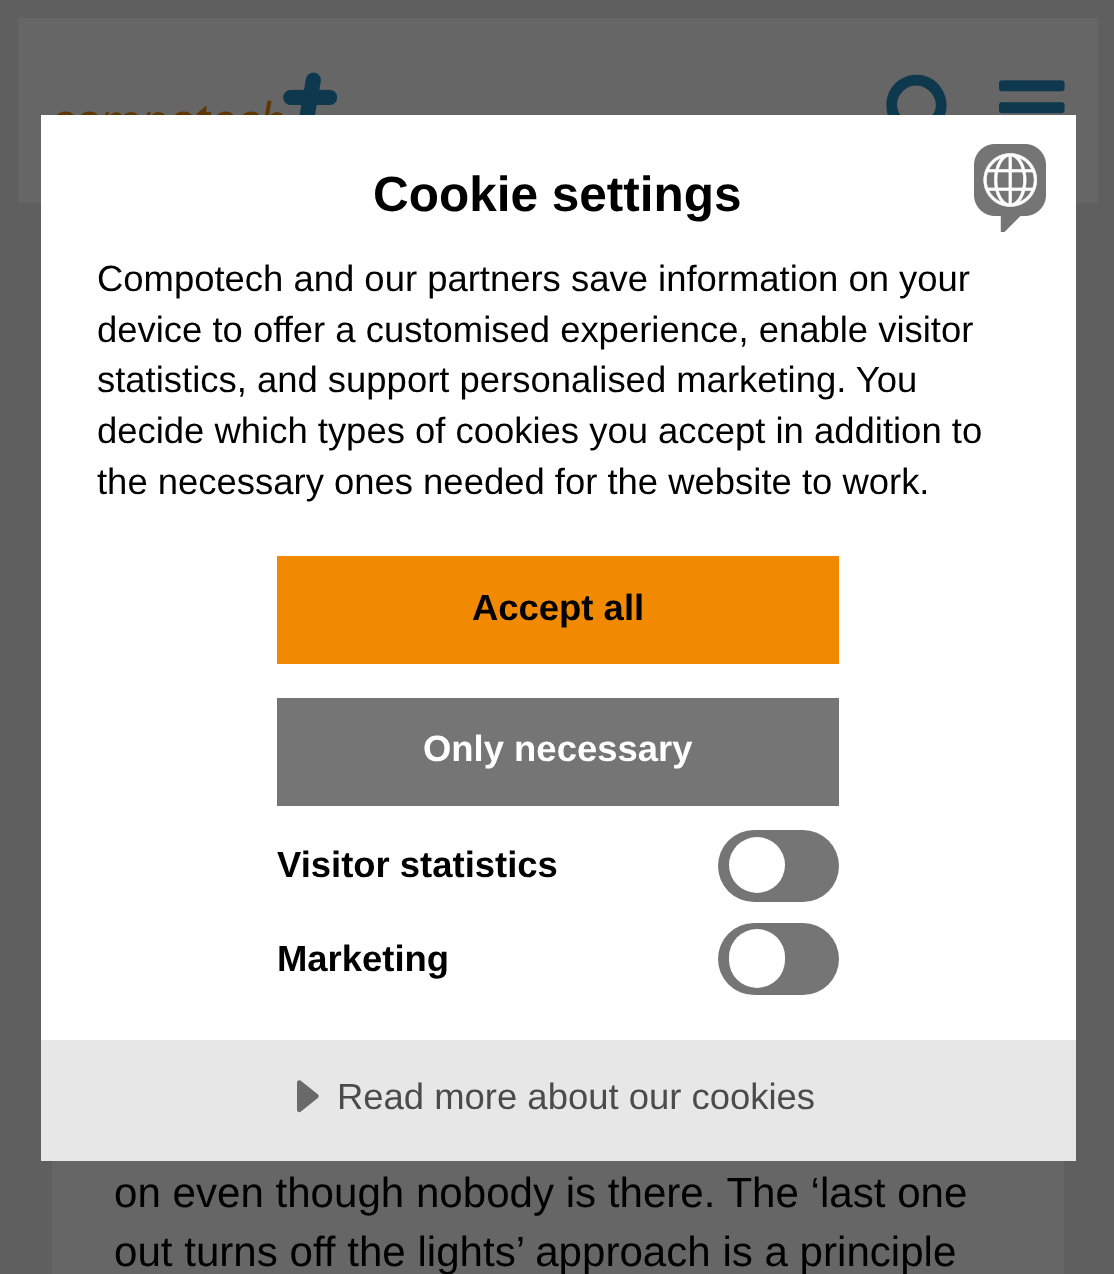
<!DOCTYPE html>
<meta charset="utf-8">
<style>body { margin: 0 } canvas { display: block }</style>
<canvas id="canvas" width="1114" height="1274"></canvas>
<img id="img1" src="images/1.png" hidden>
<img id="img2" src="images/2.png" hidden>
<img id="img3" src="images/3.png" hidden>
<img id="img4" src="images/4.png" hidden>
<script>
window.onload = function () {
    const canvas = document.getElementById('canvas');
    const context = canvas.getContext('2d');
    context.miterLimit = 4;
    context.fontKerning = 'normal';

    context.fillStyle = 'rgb(95, 95, 95)';
    context.fillRect(0, 0, 1114, 1274);
    context.fillStyle = 'rgb(102, 102, 102)';
    context.fillRect(18, 18, 1080, 185);
    context.drawImage(document.getElementById('img1'), 57, 72, 281, 43);
    context.fillStyle = 'rgb(14, 56, 77)';
    context.beginPath();
    context.moveTo(930, 118);
    context.bezierCurveTo(948, 101, 921, 74, 903, 91);
    context.bezierCurveTo(885, 109, 912, 136, 930, 118);
    context.closePath();
    context.moveTo(958, 140);
    context.bezierCurveTo(958, 142, 957, 144, 955, 145);
    context.bezierCurveTo(950, 148, 946, 142, 943, 139);
    context.lineTo(934, 130);
    context.bezierCurveTo(919, 140, 897, 134, 889, 118);
    context.bezierCurveTo(886, 112, 886, 104, 887, 98);
    context.bezierCurveTo(895, 68, 936, 67, 945, 96);
    context.bezierCurveTo(948, 105, 947, 114, 941, 122);
    context.lineTo(956, 137);
    context.bezierCurveTo(957, 138, 958, 139, 958, 140);
    context.closePath();
    context.fill();
    context.drawImage(document.getElementById('img2'), 999, 80, 66, 34);
    context.fillStyle = 'rgb(255, 255, 255)';
    context.fillRect(41, 115, 1035, 925);
    context.fillStyle = 'rgb(241, 138, 0)';
    context.fillRect(277, 556, 562, 108);
    context.fillStyle = 'rgb(117, 117, 117)';
    context.fillRect(277, 698, 562, 108);
    context.beginPath();
    context.roundRect(718, 830, 121, 72, 36);
    context.fill();
    context.fillStyle = 'rgb(255, 255, 255)';
    context.beginPath();
    context.arc(757, 865, 28, 0, 2 * Math.PI);
    context.fill();
    context.fillStyle = 'rgb(117, 117, 117)';
    context.beginPath();
    context.roundRect(718, 923, 121, 72, 36);
    context.fill();
    context.fillStyle = 'rgb(255, 255, 255)';
    context.beginPath();
    context.roundRect(729, 929, 56, 59, 28);
    context.fill();
    context.drawImage(document.getElementById('img3'), 974, 144, 72, 88);
    context.fillStyle = 'rgb(231, 231, 231)';
    context.fillRect(41, 1040, 1035, 121);
    context.drawImage(document.getElementById('img4'), 297, 1080, 22, 33);
    context.fillStyle = 'rgb(102, 102, 102)';
    context.fillRect(52, 1161, 1012, 113);
    context.font = 'bold 49.5px Liberation Sans';
    context.fillStyle = 'rgb(0, 0, 0)';
    context.fillText('Cookie settings', 373, 211);
    context.font = '36.45px Liberation Sans';
    context.fillText('Compotech and our partners save information on your', 97, 291);
    context.fillText('device to offer a customised experience, enable visitor', 97, 342);
    context.fillText('statistics, and support personalised marketing. You', 97, 392);
    context.fillText('decide which types of cookies you accept in addition to', 97, 443);
    context.fillText('the necessary ones needed for the website to work.', 97, 494);
    context.font = 'bold 36.45px Liberation Sans';
    context.fillText('Accept all', 472, 620);
    context.fillStyle = 'rgb(255, 255, 255)';
    context.fillText('Only necessary', 423, 761);
    context.fillStyle = 'rgb(0, 0, 0)';
    context.fillText('Visitor statistics', 277, 877);
    context.fillText('Marketing', 277, 971);
    context.font = '36.45px Liberation Sans';
    context.fillStyle = 'rgb(75, 75, 75)';
    context.fillText('Read more about our cookies', 337, 1109);
    context.font = '42.1px Liberation Sans';
    context.fillStyle = 'rgb(0, 0, 0)';
    context.fillText('on even though nobody is there. The ‘last one', 114, 1207);
    context.fillText('out turns off the lights’ approach is a principle', 114, 1266);
};
</script>
